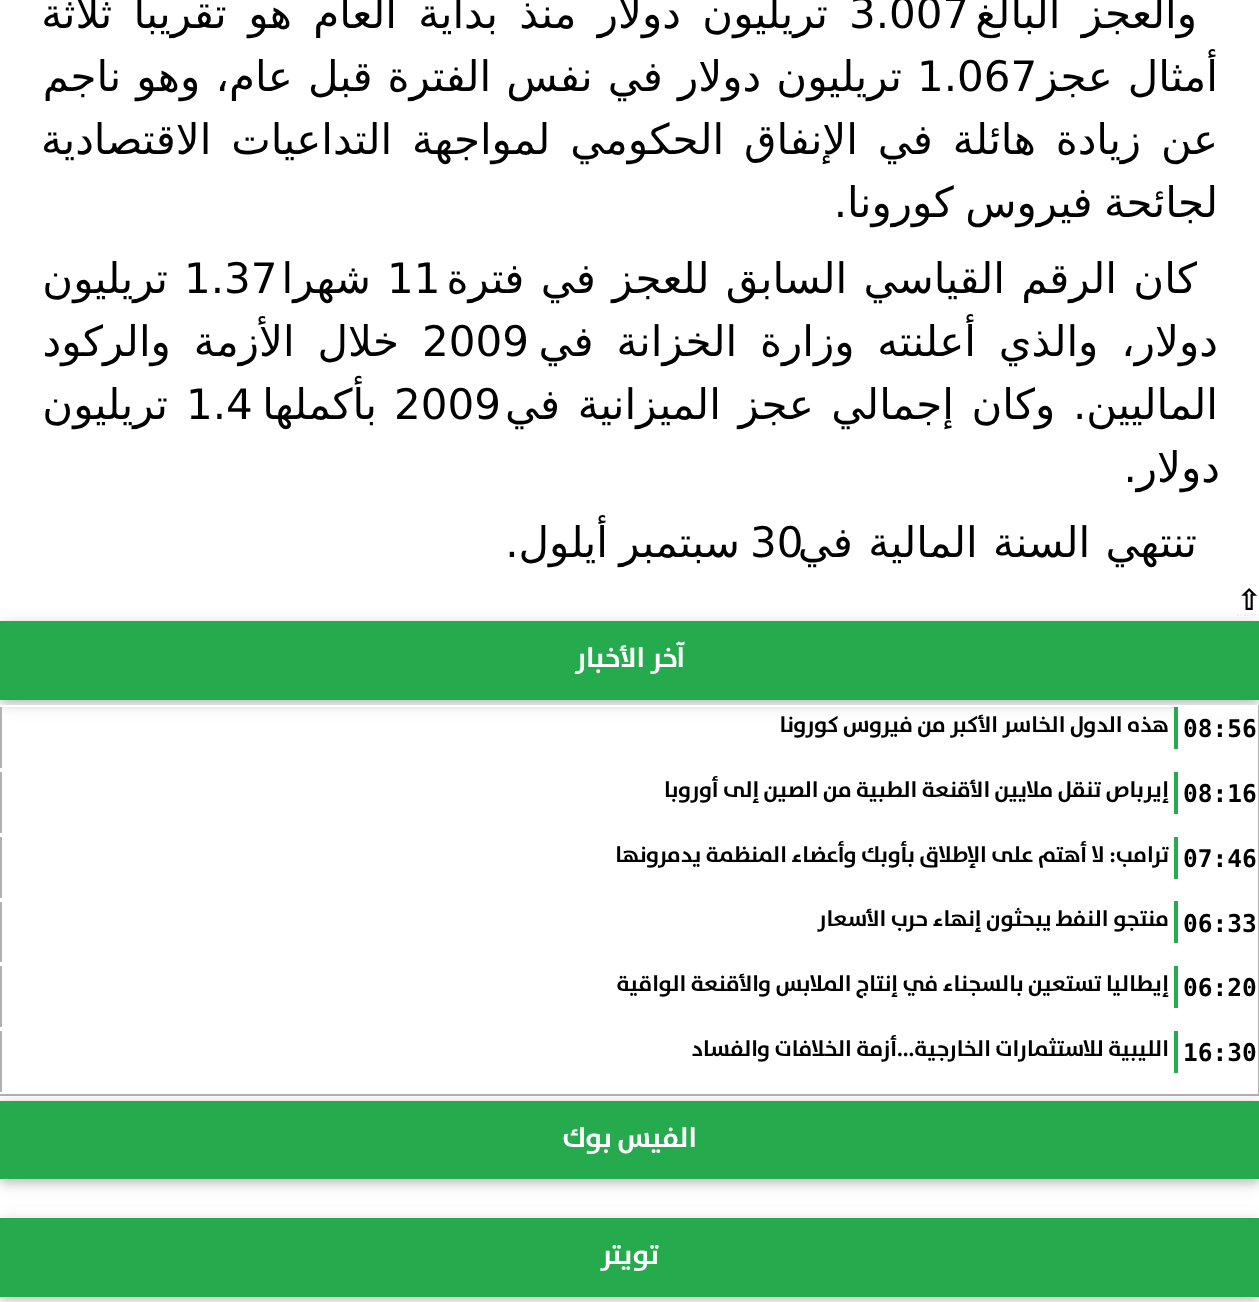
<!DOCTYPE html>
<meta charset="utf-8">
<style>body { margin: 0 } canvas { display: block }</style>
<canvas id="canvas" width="1259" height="1302"></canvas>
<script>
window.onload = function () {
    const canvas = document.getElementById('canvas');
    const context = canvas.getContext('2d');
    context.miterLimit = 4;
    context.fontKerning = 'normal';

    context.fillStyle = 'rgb(255, 255, 255)';
    context.fillRect(0, 0, 1259, 1302);
    context.fillStyle = 'rgba(0, 0, 0, 0.12)';
    context.filter = 'blur(9px)';
    context.beginPath();
    context.rect(0, 625, 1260, 79);
    context.fill();
    context.filter = 'none';
    context.fillStyle = 'rgba(0, 0, 0, 0.16)';
    context.filter = 'blur(4.5px)';
    context.beginPath();
    context.rect(0, 625, 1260, 79);
    context.fill();
    context.filter = 'none';
    context.beginPath();
    context.moveTo(1237, 615);
    context.lineTo(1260, 615);
    context.strokeStyle = 'rgb(238, 238, 238)';
    context.lineWidth = 1.8;
    context.setLineDash([1.75, 1.75]);
    context.stroke();
    context.fillStyle = 'rgb(37, 170, 77)';
    context.fillRect(0, 621, 1259, 79);
    context.fillStyle = 'rgb(178, 176, 176)';
    context.fillRect(1258, 705, 1, 391);
    context.fillRect(0, 1094, 1259, 2);
    context.fillRect(0, 705, 2, 391);
    context.strokeStyle = 'rgb(255, 255, 255)';
    context.lineWidth = 2;
    context.setLineDash([]);
    context.strokeRect(-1, 706, 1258, 63);
    context.fillStyle = 'rgb(255, 255, 255)';
    context.fillRect(1178, 707, 78, 10);
    context.fillStyle = 'rgb(37, 170, 77)';
    context.fillRect(1174, 707, 4, 42);
    context.strokeRect(-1, 771, 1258, 63);
    context.fillRect(1174, 772, 4, 42);
    context.strokeRect(-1, 836, 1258, 63);
    context.fillRect(1174, 837, 4, 42);
    context.strokeRect(-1, 901, 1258, 62);
    context.fillRect(1174, 901, 4, 42);
    context.strokeRect(-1, 965, 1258, 63);
    context.fillRect(1174, 966, 4, 42);
    context.fillStyle = 'rgba(0, 0, 0, 0.12)';
    context.filter = 'blur(9px)';
    context.beginPath();
    context.rect(0, 1104, 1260, 79);
    context.fill();
    context.filter = 'none';
    context.fillStyle = 'rgba(0, 0, 0, 0.16)';
    context.filter = 'blur(4.5px)';
    context.beginPath();
    context.rect(0, 1104, 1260, 79);
    context.fill();
    context.filter = 'none';
    context.strokeRect(-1, 1030, 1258, 63);
    context.fillStyle = 'rgb(37, 170, 77)';
    context.fillRect(1174, 1031, 4, 42);
    context.fillRect(0, 1101, 1259, 78);
    context.fillStyle = 'rgba(0, 0, 0, 0.12)';
    context.filter = 'blur(9px)';
    context.beginPath();
    context.rect(0, 1222, 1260, 78);
    context.fill();
    context.filter = 'none';
    context.fillStyle = 'rgba(0, 0, 0, 0.16)';
    context.filter = 'blur(4.5px)';
    context.beginPath();
    context.rect(0, 1222, 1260, 78);
    context.fill();
    context.filter = 'none';
    context.fillStyle = 'rgb(37, 170, 77)';
    context.fillRect(0, 1218, 1259, 79);
    context.wordSpacing = '8px';
    context.direction = 'rtl';
    context.font = '42px DejaVu Sans';
    context.fillStyle = 'rgb(0, 0, 0)';
    context.fillText('والعجز البالغ', 1197, 28);
    context.wordSpacing = '0px';
    context.direction = 'ltr';
    context.fillText('3.007', 849, 28);
    context.wordSpacing = '8px';
    context.direction = 'rtl';
    context.fillText('تريليون دولار منذ بداية العام هو تقريبا ثلاثة', 828, 28);
    context.wordSpacing = '1.75px';
    context.fillText('أمثال عجز', 1218, 91);
    context.wordSpacing = '0px';
    context.direction = 'ltr';
    context.fillText('1.067', 917, 91);
    context.wordSpacing = '1.75px';
    context.direction = 'rtl';
    context.fillText('تريليون دولار في نفس الفترة قبل عام، وهو ناجم', 902, 91);
    context.wordSpacing = '6.5px';
    context.fillText('عن زيادة هائلة في الإنفاق الحكومي لمواجهة التداعيات الاقتصادية', 1218, 154);
    context.wordSpacing = '-2px';
    context.fillText('لجائحة فيروس كورونا.', 1218, 217);
    context.wordSpacing = '3px';
    context.fillText('كان الرقم القياسي السابق للعجز في فترة', 1197, 293);
    context.wordSpacing = '0px';
    context.direction = 'ltr';
    context.fillText('11', 387, 293);
    context.direction = 'rtl';
    context.fillText('شهرا', 371, 293);
    context.direction = 'ltr';
    context.fillText('1.37', 184, 293);
    context.direction = 'rtl';
    context.fillText('تريليون', 168, 293);
    context.wordSpacing = '9.5px';
    context.fillText('دولار، والذي أعلنته وزارة الخزانة في', 1218, 356);
    context.wordSpacing = '0px';
    context.direction = 'ltr';
    context.fillText('2009', 422, 356);
    context.wordSpacing = '9.5px';
    context.direction = 'rtl';
    context.fillText('خلال الأزمة والركود', 399, 356);
    context.wordSpacing = '4.25px';
    context.fillText('الماليين. وكان إجمالي عجز الميزانية في', 1218, 419);
    context.wordSpacing = '0px';
    context.direction = 'ltr';
    context.fillText('2009', 394, 419);
    context.direction = 'rtl';
    context.fillText('بأكملها', 377, 419);
    context.direction = 'ltr';
    context.fillText('1.4', 186, 419);
    context.direction = 'rtl';
    context.fillText('تريليون', 168, 419);
    context.fillText('دولار.', 1220, 482);
    context.direction = 'ltr';
    context.fillText('30', 750, 557);
    context.wordSpacing = '2px';
    context.direction = 'rtl';
    context.fillText('تنتهي السنة المالية في', 1197, 557);
    context.wordSpacing = '-2px';
    context.fillText('سبتمبر أيلول.', 740, 557);
    context.wordSpacing = '0px';
    context.direction = 'ltr';
    context.font = 'bold 28px DejaVu Sans';
    context.fillText('⇧', 1237, 610);
    context.direction = 'rtl';
    context.font = 'bold 28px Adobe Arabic';
    context.fillStyle = 'rgb(255, 255, 255)';
    context.fillText('آخر الأخبار', 685, 667);
    context.direction = 'ltr';
    context.font = 'bold 24.5px DejaVu Sans Mono';
    context.fillStyle = 'rgb(0, 0, 0)';
    context.fillText('08:56', 1183, 737);
    context.direction = 'rtl';
    context.font = 'bold 22.4px Adobe Arabic';
    context.fillText('هذه الدول الخاسر الأكبر من فيروس كورونا', 1169, 732);
    context.direction = 'ltr';
    context.font = 'bold 24.5px DejaVu Sans Mono';
    context.fillText('08:16', 1183, 802);
    context.direction = 'rtl';
    context.font = 'bold 22.4px Adobe Arabic';
    context.fillText('إيرباص تنقل ملايين الأقنعة الطبية من الصين إلى أوروبا', 1169, 797);
    context.direction = 'ltr';
    context.font = 'bold 24.5px DejaVu Sans Mono';
    context.fillText('07:46', 1183, 867);
    context.direction = 'rtl';
    context.font = 'bold 22.4px Adobe Arabic';
    context.fillText('ترامب: لا أهتم على الإطلاق بأوبك وأعضاء المنظمة يدمرونها', 1169, 862);
    context.direction = 'ltr';
    context.font = 'bold 24.5px DejaVu Sans Mono';
    context.fillText('06:33', 1183, 932);
    context.direction = 'rtl';
    context.font = 'bold 22.4px Adobe Arabic';
    context.fillText('منتجو النفط يبحثون إنهاء حرب الأسعار', 1169, 926);
    context.direction = 'ltr';
    context.font = 'bold 24.5px DejaVu Sans Mono';
    context.fillText('06:20', 1183, 996);
    context.direction = 'rtl';
    context.font = 'bold 22.4px Adobe Arabic';
    context.fillText('إيطاليا تستعين بالسجناء في إنتاج الملابس والأقنعة الواقية', 1169, 991);
    context.direction = 'ltr';
    context.font = 'bold 24.5px DejaVu Sans Mono';
    context.fillText('16:30', 1183, 1061);
    context.direction = 'rtl';
    context.font = 'bold 22.4px Adobe Arabic';
    context.fillText('الليبية للاستثمارات الخارجية...أزمة الخلافات والفساد', 1169, 1056);
    context.font = 'bold 28px Adobe Arabic';
    context.fillStyle = 'rgb(255, 255, 255)';
    context.fillText('الفيس بوك', 697, 1147);
    context.fillText('تويتر', 659, 1264);
};
</script>
